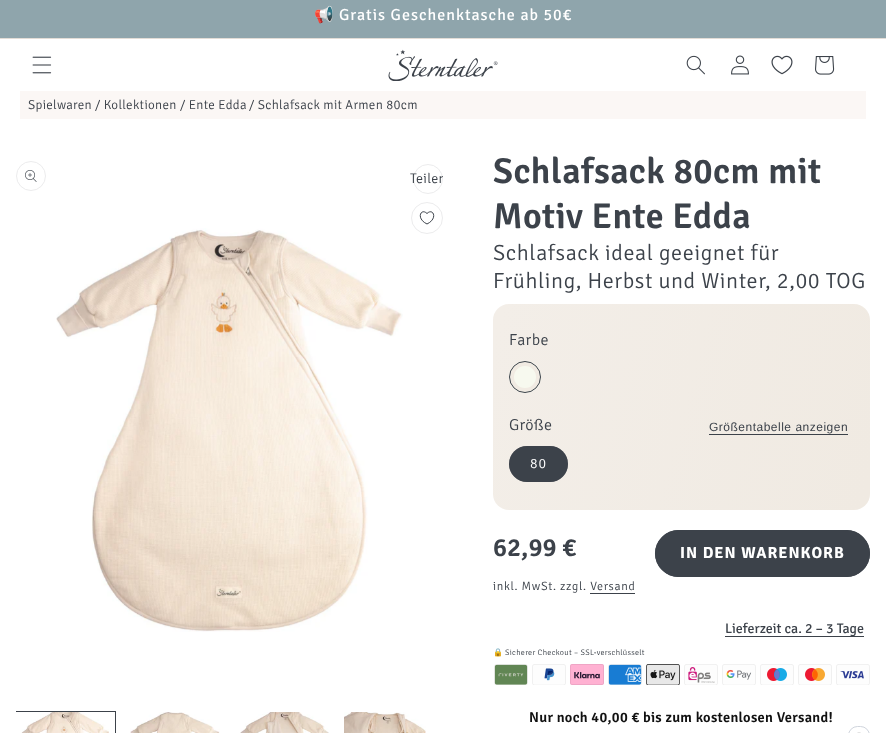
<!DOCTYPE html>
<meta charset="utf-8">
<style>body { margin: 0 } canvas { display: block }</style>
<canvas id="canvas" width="886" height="733"></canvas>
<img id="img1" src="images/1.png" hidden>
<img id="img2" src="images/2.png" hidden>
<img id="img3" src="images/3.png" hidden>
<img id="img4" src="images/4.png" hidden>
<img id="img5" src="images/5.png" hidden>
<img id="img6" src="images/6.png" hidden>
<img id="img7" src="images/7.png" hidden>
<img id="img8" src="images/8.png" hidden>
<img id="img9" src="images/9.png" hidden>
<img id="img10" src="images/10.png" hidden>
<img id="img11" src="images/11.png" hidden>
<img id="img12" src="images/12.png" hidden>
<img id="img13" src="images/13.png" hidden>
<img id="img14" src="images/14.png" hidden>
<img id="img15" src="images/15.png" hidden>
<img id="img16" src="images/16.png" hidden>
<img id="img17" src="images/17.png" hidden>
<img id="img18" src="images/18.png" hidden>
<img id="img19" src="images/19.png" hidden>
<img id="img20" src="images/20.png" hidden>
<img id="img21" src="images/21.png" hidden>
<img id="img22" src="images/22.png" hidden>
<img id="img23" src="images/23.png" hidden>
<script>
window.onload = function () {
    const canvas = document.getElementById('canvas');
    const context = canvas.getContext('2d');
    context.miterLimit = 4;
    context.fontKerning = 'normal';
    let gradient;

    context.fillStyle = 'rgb(255, 255, 255)';
    context.fillRect(0, 0, 886, 733);
    context.fillStyle = 'rgb(227, 221, 215)';
    context.fillRect(0, 38, 886, 1);
    context.fillStyle = 'rgb(143, 165, 172)';
    context.fillRect(0, 0, 886, 38);
    context.drawImage(document.getElementById('img1'), 32, 56, 20, 18);
    context.drawImage(document.getElementById('img2'), 388, 49, 110, 32);
    context.drawImage(document.getElementById('img3'), 686, 55, 19, 20);
    context.drawImage(document.getElementById('img4'), 731, 55, 18, 20);
    context.drawImage(document.getElementById('img5'), 771, 55, 22, 20);
    context.drawImage(document.getElementById('img6'), 815, 56, 20, 19);
    context.fillStyle = 'rgb(251, 247, 245)';
    context.fillRect(20, 91, 846, 28);
    context.beginPath();
    context.arc(31, 176, 14.5, 0, 2 * Math.PI);
    context.strokeStyle = 'rgb(236, 236, 237)';
    context.stroke();
    context.drawImage(document.getElementById('img7'), 25, 170, 12, 12);
    context.drawImage(document.getElementById('img8'), 56, 228, 347, 404);
    context.beginPath();
    context.arc(428, 179, 14.5, 0, 2 * Math.PI);
    context.stroke();
    context.beginPath();
    context.arc(427, 218, 15.5, 0, 2 * Math.PI);
    context.stroke();
    context.beginPath();
    context.moveTo(427, 224);
    context.bezierCurveTo(415.5, 218.5, 421, 207.5, 427, 213.5);
    context.bezierCurveTo(433, 207.5, 438.5, 218.5, 427, 224);
    context.closePath();
    context.strokeStyle = 'rgb(60, 66, 74)';
    context.stroke();
    context.save();
    context.beginPath();
    context.rect(16, 119, 427, 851);
    context.clip();
    context.strokeRect(15.5, 711.5, 100, 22);
    context.restore();
    context.drawImage(document.getElementById('img9'), 21, 712, 88, 21);
    context.drawImage(document.getElementById('img10'), 130, 712, 90, 21);
    context.drawImage(document.getElementById('img11'), 240, 712, 89, 21);
    context.drawImage(document.getElementById('img12'), 344, 712, 82, 21);
    gradient = context.createLinearGradient(480, 353, 883, 461);
    gradient.addColorStop(0.02, 'rgb(243, 238, 232)');
    gradient.addColorStop(0.98, 'rgb(240, 234, 226)');
    context.fillStyle = gradient;
    context.beginPath();
    context.roundRect(493, 304, 377, 206, 16);
    context.fill();
    context.fillStyle = 'rgb(247, 249, 239)';
    context.beginPath();
    context.arc(525, 377, 16, 0, 2 * Math.PI);
    context.fill();
    context.beginPath();
    context.arc(525, 377, 13, 0, 2 * Math.PI);
    context.strokeStyle = 'rgb(241, 235, 227)';
    context.lineWidth = 4;
    context.stroke();
    context.beginPath();
    context.arc(525, 377, 15.5, 0, 2 * Math.PI);
    context.strokeStyle = 'rgb(60, 66, 74)';
    context.lineWidth = 1;
    context.stroke();
    context.fillStyle = 'rgb(60, 66, 74)';
    context.fillRect(709, 434, 139, 1);
    context.beginPath();
    context.roundRect(509, 446, 59, 36, 18);
    context.fill();
    context.beginPath();
    context.roundRect(509.5, 446.5, 58, 35, 17.5);
    context.strokeStyle = 'rgba(60, 66, 74, 0.55)';
    context.stroke();
    context.fillRect(590, 593, 45, 1);
    context.beginPath();
    context.roundRect(655, 530, 215, 47, 23.5);
    context.fill();
    context.beginPath();
    context.roundRect(655.5, 530.5, 214, 46, 23);
    context.strokeStyle = 'rgb(60, 66, 74)';
    context.stroke();
    context.fillRect(725, 636, 139, 1);
    context.drawImage(document.getElementById('img13'), 494, 664, 34, 21);
    context.drawImage(document.getElementById('img14'), 532, 664, 34, 21);
    context.drawImage(document.getElementById('img15'), 570, 664, 34, 21);
    context.drawImage(document.getElementById('img16'), 608, 664, 34, 21);
    context.drawImage(document.getElementById('img17'), 646, 664, 34, 21);
    context.drawImage(document.getElementById('img18'), 684, 664, 34, 21);
    context.drawImage(document.getElementById('img19'), 722, 664, 34, 21);
    context.drawImage(document.getElementById('img20'), 760, 664, 34, 21);
    context.drawImage(document.getElementById('img21'), 798, 664, 34, 21);
    context.drawImage(document.getElementById('img22'), 836, 664, 34, 21);
    context.beginPath();
    context.roundRect(848.5, 726.5, 21, 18, 10.5);
    context.strokeStyle = 'rgb(208, 213, 221)';
    context.stroke();
    context.drawImage(document.getElementById('img23'), 857, 732, 4, 1);
    context.letterSpacing = '1px';
    context.font = '16px Noto Color Emoji';
    context.fillStyle = 'rgb(255, 255, 255)';
    context.fillText('📢', 314, 20);
    context.font = '16px Signika';
    context.fillText('Gratis Geschenktasche ab 50€', 339, 20);
    context.letterSpacing = '0.3px';
    context.font = '300 13px Signika';
    context.fillStyle = 'rgb(60, 66, 74)';
    context.fillText('Spielwaren', 28, 109);
    context.fillText('/ Kollektionen', 95, 109);
    context.fillText('/ Ente Edda', 180, 109);
    context.fillText('/ Schlafsack mit Armen 80cm', 249, 109);
    context.save();
    context.beginPath();
    context.rect(16, 119, 427, 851);
    context.clip();
    context.font = '300 14px Signika';
    context.fillText('Teilen', 410, 183);
    context.restore();
    context.letterSpacing = '0.4px';
    context.font = '600 36px Signika';
    context.fillText('Schlafsack 80cm mit', 493, 183);
    context.fillText('Motiv Ente Edda', 493, 228);
    context.letterSpacing = '0.6px';
    context.font = '300 22px Signika';
    context.fillText('Schlafsack ideal geeignet für', 493, 260);
    context.fillText('Frühling, Herbst und Winter, 2,00 TOG', 493, 288);
    context.letterSpacing = '0.4px';
    context.font = '300 16px Signika';
    context.fillText('Farbe', 509, 345);
    context.fillText('Größe', 509, 430);
    context.letterSpacing = '0.5px';
    context.font = '12px Liberation Sans';
    context.fillText('Größentabelle anzeigen', 709, 431);
    context.letterSpacing = '1px';
    context.font = '300 14px Signika';
    context.fillStyle = 'rgb(255, 255, 255)';
    context.fillText('80', 530, 468);
    context.letterSpacing = '0px';
    context.font = '600 26px Signika';
    context.fillStyle = 'rgb(60, 66, 74)';
    context.fillText('62,99 €', 493, 556);
    context.letterSpacing = '0.7px';
    context.font = '300 12px Signika';
    context.fillText('inkl. MwSt. zzgl. Versand', 493, 590);
    context.letterSpacing = '1px';
    context.font = 'bold 16px Signika';
    context.fillStyle = 'rgb(255, 255, 255)';
    context.fillText('IN DEN WARENKORB', 680, 558);
    context.letterSpacing = '0px';
    context.font = '14px Signika';
    context.fillStyle = 'rgb(60, 66, 74)';
    context.fillText('Lieferzeit ca. 2 – 3 Tage', 725, 633);
    context.letterSpacing = '0.3px';
    context.font = '8px Noto Color Emoji';
    context.fillText('🔒', 493, 655);
    context.font = '300 8px Signika';
    context.fillText('Sicherer Checkout – SSL-verschlüsselt', 505, 655);
    context.font = '600 14.4px Signika';
    context.fillStyle = 'rgb(17, 17, 17)';
    context.fillText('Nur noch 40,00 € bis zum kostenlosen Versand!', 529, 722);
};
</script>
